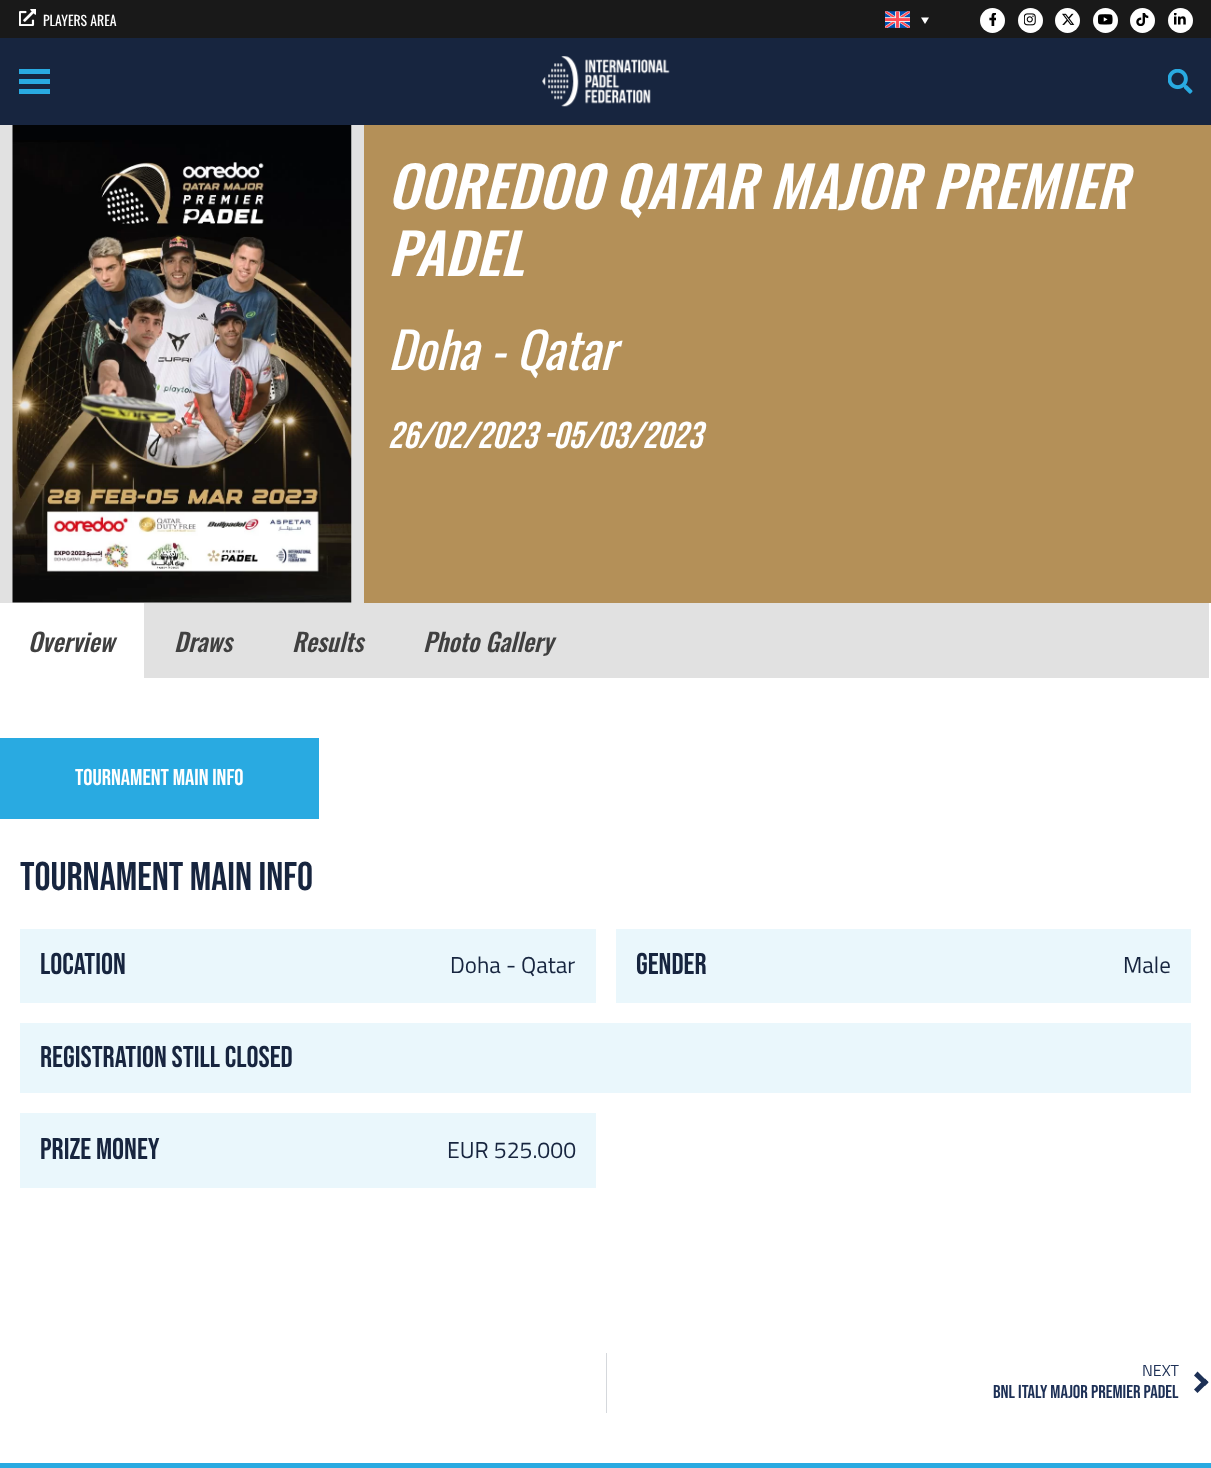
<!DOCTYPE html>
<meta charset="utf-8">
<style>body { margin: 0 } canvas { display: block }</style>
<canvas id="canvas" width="1211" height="1468"></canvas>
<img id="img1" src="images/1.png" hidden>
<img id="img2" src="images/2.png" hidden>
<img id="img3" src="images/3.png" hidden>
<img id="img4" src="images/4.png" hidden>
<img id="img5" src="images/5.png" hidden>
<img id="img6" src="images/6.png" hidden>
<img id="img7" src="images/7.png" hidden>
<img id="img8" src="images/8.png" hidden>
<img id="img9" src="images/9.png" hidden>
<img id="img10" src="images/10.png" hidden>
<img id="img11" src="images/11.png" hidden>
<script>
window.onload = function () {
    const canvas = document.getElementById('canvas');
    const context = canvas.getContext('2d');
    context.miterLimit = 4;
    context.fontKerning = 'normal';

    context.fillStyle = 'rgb(255, 255, 255)';
    context.fillRect(0, 0, 1211, 1468);
    context.fillStyle = 'rgb(25, 25, 25)';
    context.fillRect(0, 0, 1211, 38);
    context.drawImage(document.getElementById('img1'), 19, 9, 17, 17);
    context.drawImage(document.getElementById('img2'), 885, 11, 25, 17);
    context.fillStyle = 'rgb(255, 255, 255)';
    context.beginPath();
    context.moveTo(921, 17.5);
    context.lineTo(929, 17.5);
    context.lineTo(925, 24);
    context.closePath();
    context.fill();
    context.beginPath();
    context.arc(992.5, 20.5, 12.5, 0, 2 * Math.PI);
    context.fill();
    context.drawImage(document.getElementById('img3'), 989, 13, 7, 13);
    context.beginPath();
    context.arc(1030.5, 20.5, 12.5, 0, 2 * Math.PI);
    context.fill();
    context.drawImage(document.getElementById('img4'), 1024, 13, 12, 13);
    context.beginPath();
    context.arc(1067.5, 20.5, 12.5, 0, 2 * Math.PI);
    context.fill();
    context.drawImage(document.getElementById('img5'), 1062, 13, 13, 12);
    context.beginPath();
    context.arc(1105.5, 20.5, 12.5, 0, 2 * Math.PI);
    context.fill();
    context.drawImage(document.getElementById('img6'), 1098, 14, 15, 11);
    context.beginPath();
    context.arc(1142.5, 20.5, 12.5, 0, 2 * Math.PI);
    context.fill();
    context.drawImage(document.getElementById('img7'), 1136, 13, 13, 13);
    context.beginPath();
    context.arc(1180.5, 20.5, 12.5, 0, 2 * Math.PI);
    context.fill();
    context.drawImage(document.getElementById('img8'), 1174, 13, 12, 12);
    context.fillStyle = 'rgb(23, 37, 63)';
    context.fillRect(0, 38, 1211, 87);
    context.fillStyle = 'rgb(41, 170, 225)';
    context.fillRect(19, 69, 31, 5);
    context.fillRect(19, 79, 31, 5);
    context.fillRect(19, 89, 31, 5);
    context.drawImage(document.getElementById('img9'), 542, 56, 128, 51);
    context.drawImage(document.getElementById('img10'), 1168, 69, 25, 25);
    context.fillStyle = 'rgb(180, 144, 88)';
    context.fillRect(364, 125, 847, 478);
    context.fillStyle = 'rgb(225, 225, 225)';
    context.fillRect(0, 125, 364, 478);
    context.drawImage(document.getElementById('img11'), 12, 125, 340, 478);
    context.fillRect(144, 603, 1065, 75);
    context.fillStyle = 'rgb(41, 170, 225)';
    context.fillRect(0, 738, 319, 81);
    context.fillStyle = 'rgb(234, 247, 252)';
    context.fillRect(20, 929, 576, 74);
    context.fillRect(616, 929, 575, 74);
    context.fillRect(20, 1023, 1171, 70);
    context.fillRect(20, 1113, 576, 75);
    context.fillStyle = 'rgb(213, 216, 220)';
    context.fillRect(606, 1353, 1, 60);
    context.fillStyle = 'rgb(29, 48, 86)';
    context.beginPath();
    context.moveTo(1194, 1389.5);
    context.lineTo(1205, 1378.5);
    context.lineTo(1208.5, 1382);
    context.lineTo(1197.5, 1393);
    context.closePath();
    context.fill();
    context.beginPath();
    context.moveTo(1197.5, 1371.5);
    context.lineTo(1208.5, 1382.5);
    context.lineTo(1205, 1386);
    context.lineTo(1194, 1375.5);
    context.closePath();
    context.fill();
    context.fillStyle = 'rgb(41, 170, 225)';
    context.fillRect(0, 1463, 1211, 5);
    context.font = '13.75px Oswald';
    context.fillStyle = 'rgb(255, 255, 255)';
    context.fillText('PLAYERS AREA', 43, 26);
    context.font = 'italic 500 56.25px Oswald';
    context.fillText('OOREDOO QATAR MAJOR PREMIER', 388, 209);
    context.fillText('PADEL', 388, 276);
    context.font = 'italic 50px Oswald';
    context.fillText('Doha - Qatar', 388, 370);
    context.font = 'italic 37.5px Bebas Neue';
    context.fillText('26/02/2023 -05/03/2023', 388, 448);
    context.font = 'italic 500 25px Oswald';
    context.fillStyle = 'rgb(64, 64, 64)';
    context.fillText('Overview', 28, 652);
    context.fillText('Draws', 174, 652);
    context.fillText('Results', 292, 652);
    context.fillText('Photo Gallery', 423, 652);
    context.font = '23px Bebas Neue';
    context.fillStyle = 'rgb(255, 255, 255)';
    context.fillText('Tournament main info', 75, 785);
    context.font = '40px Bebas Neue';
    context.fillStyle = 'rgb(23, 37, 63)';
    context.fillText('TOURNAMENT MAIN INFO', 20, 890);
    context.font = '30px Bebas Neue';
    context.fillText('LOCATION', 40, 974);
    context.font = '23px Titillium Web';
    context.fillText('Doha - Qatar', 450, 973);
    context.font = '30px Bebas Neue';
    context.fillText('GENDER', 636, 974);
    context.font = '23px Titillium Web';
    context.fillText('Male', 1123, 973);
    context.font = '30px Bebas Neue';
    context.fillText('REGISTRATION STILL CLOSED', 40, 1067);
    context.fillText('PRIZE MONEY', 40, 1159);
    context.font = '23px Titillium Web';
    context.fillText('EUR 525.000', 447, 1158);
    context.font = '16px Titillium Web';
    context.fillStyle = 'rgb(29, 48, 86)';
    context.fillText('NEXT', 1142, 1376);
    context.font = '18.75px Bebas Neue';
    context.fillText('BNL ITALY MAJOR PREMIER PADEL', 993, 1398);
};
</script>
